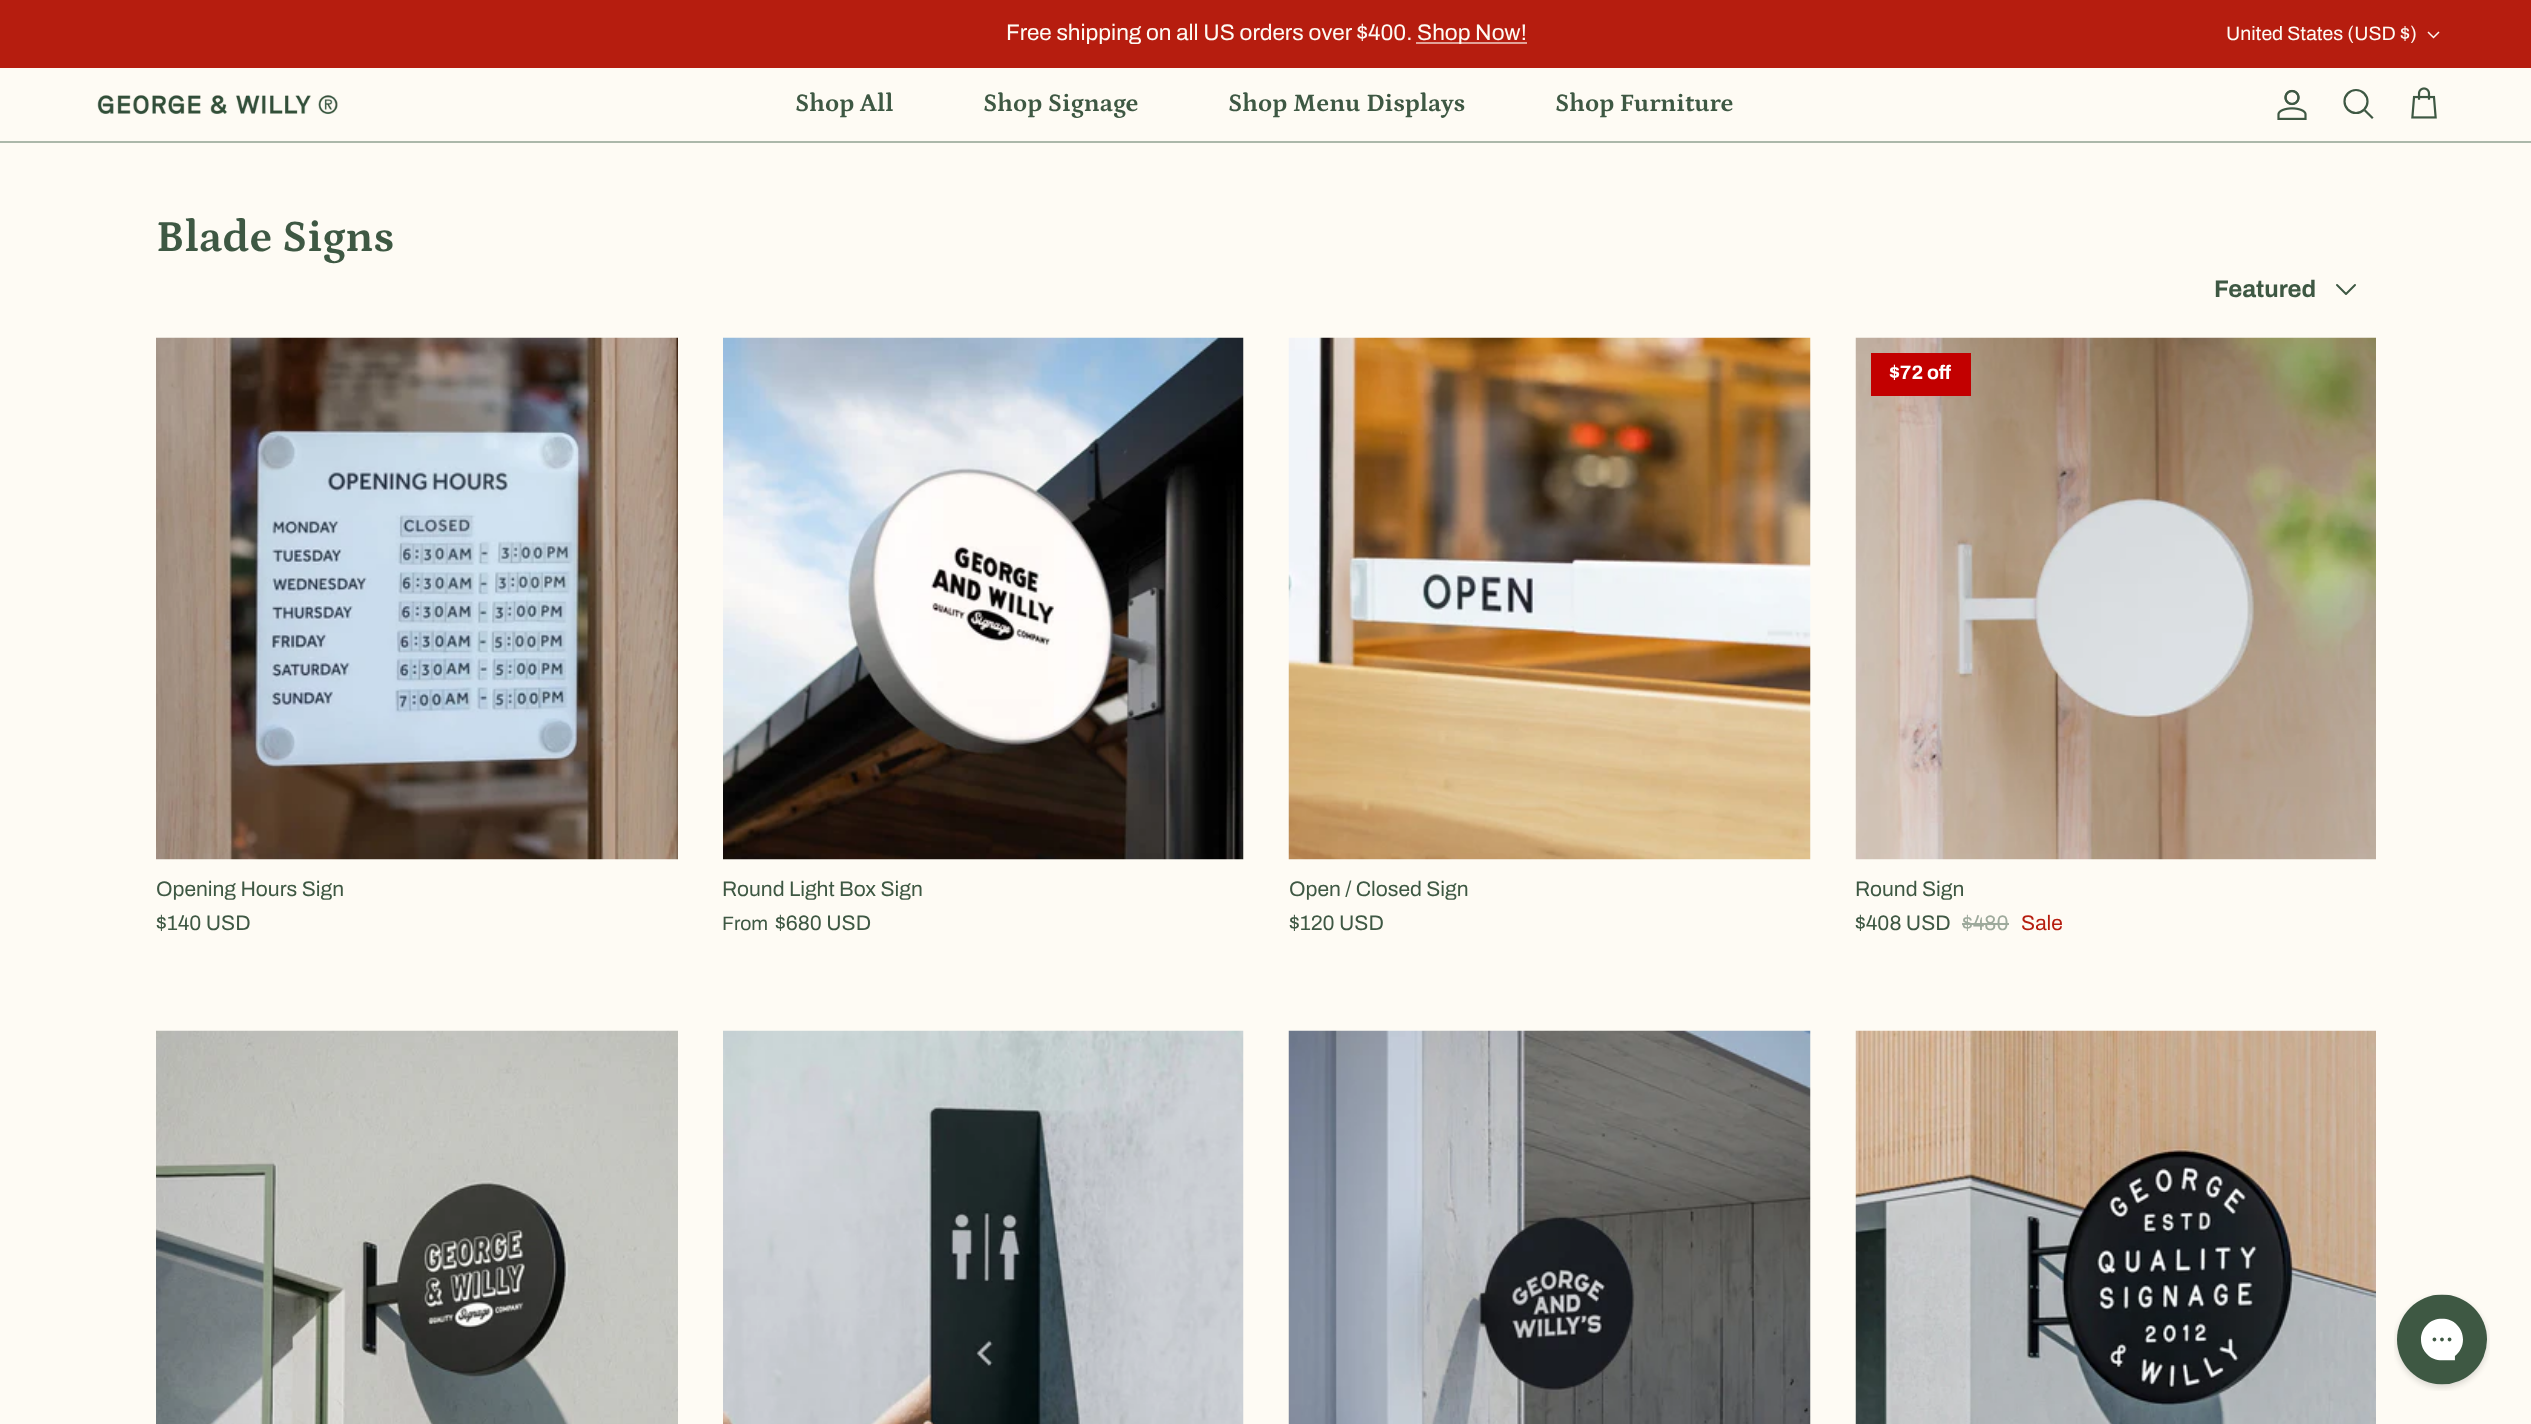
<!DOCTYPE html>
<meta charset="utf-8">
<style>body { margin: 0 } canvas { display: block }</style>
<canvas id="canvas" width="2531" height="1424"></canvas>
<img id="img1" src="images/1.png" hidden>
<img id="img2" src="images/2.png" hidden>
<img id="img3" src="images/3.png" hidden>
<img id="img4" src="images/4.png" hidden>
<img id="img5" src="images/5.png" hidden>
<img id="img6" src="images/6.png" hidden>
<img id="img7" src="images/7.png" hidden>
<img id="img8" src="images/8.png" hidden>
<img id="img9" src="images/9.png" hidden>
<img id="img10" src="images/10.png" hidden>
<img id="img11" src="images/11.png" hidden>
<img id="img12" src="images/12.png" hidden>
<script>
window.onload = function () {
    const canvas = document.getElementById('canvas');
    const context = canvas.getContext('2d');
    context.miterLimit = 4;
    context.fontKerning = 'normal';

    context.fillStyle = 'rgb(254, 251, 244)';
    context.fillRect(0, 0, 2531, 1424);
    context.fillStyle = 'rgb(182, 29, 15)';
    context.fillRect(0, 0, 2531, 68);
    context.fillStyle = 'rgb(225, 162, 152)';
    context.fillRect(1416, 42, 111, 2);
    context.beginPath();
    context.moveTo(2439, 32);
    context.lineTo(2433.5, 37.5);
    context.lineTo(2428, 32);
    context.strokeStyle = 'rgb(254, 251, 244)';
    context.lineWidth = 1.5;
    context.stroke();
    context.fillStyle = 'rgb(172, 184, 170)';
    context.fillRect(0, 141, 2531, 2);
    context.drawImage(document.getElementById('img1'), 97, 95, 241, 20);
    context.drawImage(document.getElementById('img2'), 2277, 89, 30, 31);
    context.beginPath();
    context.arc(2356, 101.5, 11.5, 0, 2 * Math.PI);
    context.strokeStyle = 'rgb(62, 88, 67)';
    context.lineWidth = 2.2;
    context.stroke();
    context.beginPath();
    context.moveTo(2365.5, 111);
    context.lineTo(2372, 117.5);
    context.lineCap = 'square';
    context.stroke();
    context.drawImage(document.getElementById('img3'), 2411, 87, 26, 32);
    context.beginPath();
    context.moveTo(2337, 285);
    context.lineTo(2346, 294);
    context.lineTo(2355, 285);
    context.lineWidth = 2;
    context.lineCap = 'round';
    context.lineJoin = 'round';
    context.stroke();
    context.drawImage(document.getElementById('img4'), 156, 337, 522, 523);
    context.drawImage(document.getElementById('img5'), 723, 337, 521, 523);
    context.beginPath();
    context.moveTo(1216.5, 607.5);
    context.lineTo(1225.5, 598.5);
    context.lineTo(1216.5, 589.5);
    context.strokeStyle = 'rgb(1, 1, 1)';
    context.stroke();
    context.drawImage(document.getElementById('img6'), 1288, 337, 523, 523);
    context.drawImage(document.getElementById('img7'), 1855, 337, 521, 523);
    context.fillStyle = 'rgb(194, 0, 0)';
    context.fillRect(1871, 353, 100, 43);
    context.fillStyle = 'rgb(158, 170, 156)';
    context.fillRect(1962, 923, 47, 2);
    context.drawImage(document.getElementById('img8'), 156, 1030, 522, 394);
    context.drawImage(document.getElementById('img9'), 723, 1030, 521, 394);
    context.drawImage(document.getElementById('img10'), 1288, 1030, 523, 394);
    context.drawImage(document.getElementById('img11'), 1855, 1030, 521, 394);
    context.drawImage(document.getElementById('img12'), 2394, 1294, 96, 97);
    context.font = '22.5px Archivo';
    context.fillStyle = 'rgb(254, 251, 244)';
    context.fillText('Free shipping on all US orders over $400.', 1006, 40);
    context.fillText('Shop Now!', 1417, 40);
    context.font = '19.5px Archivo';
    context.fillText('United States (USD $)', 2226, 40);
    context.font = 'bold 25.5px Petrona';
    context.fillStyle = 'rgb(62, 88, 67)';
    context.fillText('Shop All', 795, 111);
    context.fillText('Shop Signage', 983, 111);
    context.fillText('Shop Menu Displays', 1228, 111);
    context.fillText('Shop Furniture', 1555, 111);
    context.font = 'bold 45px Petrona';
    context.fillText('Blade Signs', 156, 251);
    context.font = 'bold 24px Archivo';
    context.fillText('Featured', 2214, 297);
    context.font = '21px Archivo';
    context.fillText('Opening Hours Sign', 156, 896);
    context.fillText('$140 USD', 156, 930);
    context.fillText('Round Light Box Sign', 722, 896);
    context.font = '19.5px Archivo';
    context.fillText('From', 722, 930);
    context.font = '21px Archivo';
    context.fillText('$680 USD', 775, 930);
    context.fillText('Open / Closed Sign', 1289, 896);
    context.fillText('$120 USD', 1289, 930);
    context.font = 'bold 19.5px Archivo';
    context.fillStyle = 'rgb(255, 255, 255)';
    context.fillText('$72 off', 1889, 379);
    context.font = '21px Archivo';
    context.fillStyle = 'rgb(62, 88, 67)';
    context.fillText('Round Sign', 1855, 896);
    context.fillText('$408 USD', 1855, 930);
    context.fillStyle = 'rgb(158, 170, 156)';
    context.fillText('$480', 1962, 930);
    context.fillStyle = 'rgb(182, 29, 15)';
    context.fillText('Sale', 2021, 930);
};
</script>
